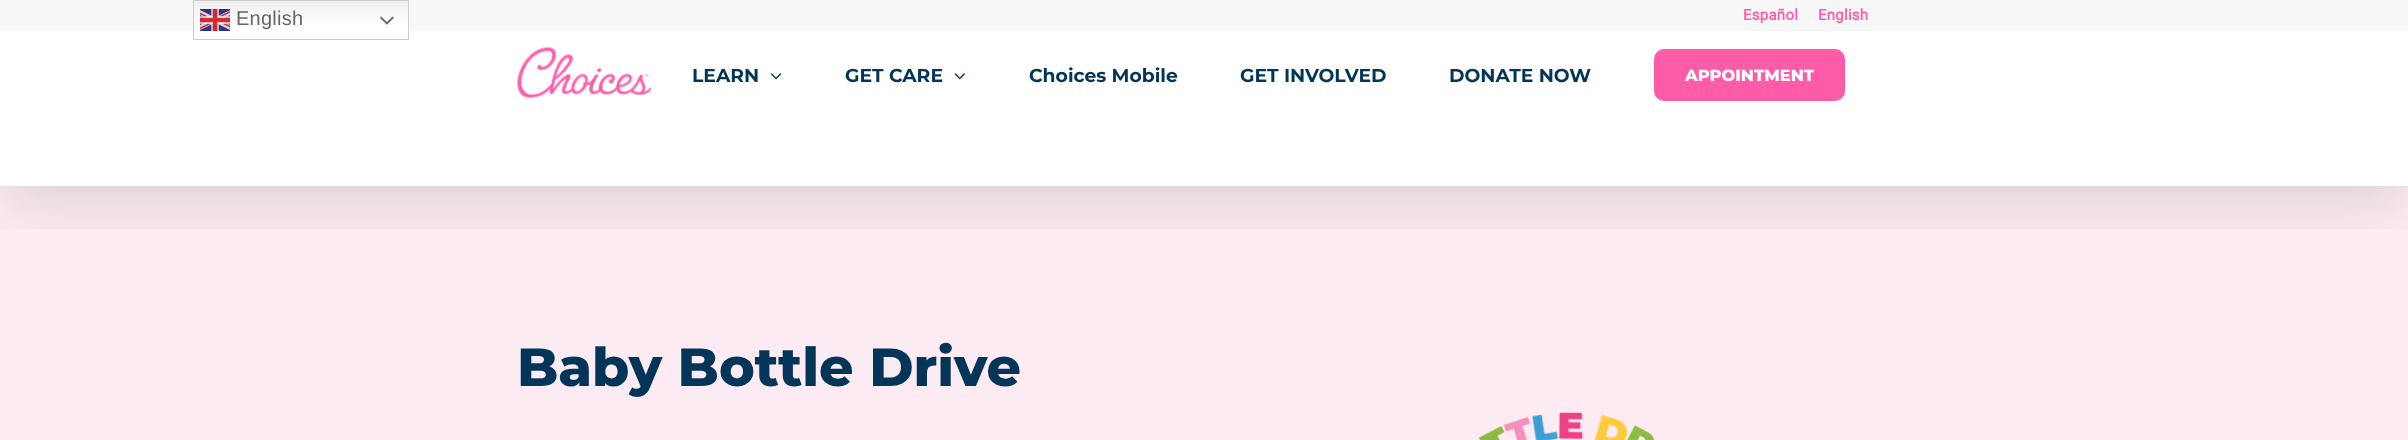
<!DOCTYPE html>
<meta charset="utf-8">
<style>body { margin: 0 } canvas { display: block }</style>
<canvas id="canvas" width="2408" height="440"></canvas>
<img id="img1" src="images/1.png" hidden>
<img id="img2" src="images/2.png" hidden>
<img id="img3" src="images/3.png" hidden>
<img id="img4" src="images/4.png" hidden>
<img id="img5" src="images/5.png" hidden>
<img id="img6" src="images/6.png" hidden>
<script>
window.onload = function () {
    const canvas = document.getElementById('canvas');
    const context = canvas.getContext('2d');
    context.miterLimit = 4;
    context.fontKerning = 'normal';
    let gradient;

    context.fillStyle = 'rgb(255, 255, 255)';
    context.fillRect(0, 0, 2408, 440);
    context.fillStyle = 'rgb(252, 235, 243)';
    context.fillRect(0, 186, 2408, 254);
    context.save();
    context.beginPath();
    context.rect(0, 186, 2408, 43);
    context.clip();
    context.fillStyle = 'rgba(0, 0, 0, 0.14)';
    context.filter = 'blur(31px)';
    context.beginPath();
    context.rect(3, 15, 2403, 181);
    context.fill();
    context.filter = 'none';
    context.restore();
    context.fillStyle = 'rgb(247, 247, 247)';
    context.fillRect(0, 0, 2408, 31);
    gradient = context.createLinearGradient(301, 0, 301, 40);
    gradient.addColorStop(0, 'rgb(239, 239, 239)');
    gradient.addColorStop(0.7, 'rgb(255, 255, 255)');
    context.fillStyle = gradient;
    context.fillRect(194, 1, 214, 30);
    context.strokeStyle = 'rgb(204, 204, 204)';
    context.strokeRect(193.5, 0.5, 215, 39);
    context.drawImage(document.getElementById('img1'), 200, 8, 30, 24);
    context.drawImage(document.getElementById('img2'), 380, 16, 14, 9);
    context.drawImage(document.getElementById('img3'), 517, 47, 135, 51);
    context.drawImage(document.getElementById('img4'), 770, 73, 12, 7);
    context.drawImage(document.getElementById('img5'), 954, 73, 11, 7);
    context.fillStyle = 'rgb(254, 91, 168)';
    context.beginPath();
    context.roundRect(1655.5, 50.5, 188, 49, 8.5);
    context.fill();
    context.strokeStyle = 'rgb(254, 91, 168)';
    context.lineWidth = 3;
    context.stroke();
    context.drawImage(document.getElementById('img6'), 1478, 412, 177, 28);
    context.letterSpacing = '0.25px';
    context.font = '20px Liberation Sans';
    context.fillStyle = 'rgb(102, 102, 102)';
    context.fillText('English', 236, 25);
    context.font = 'bold 15px Roboto';
    context.fillStyle = 'rgb(254, 91, 168)';
    context.fillText('Español', 1743, 20);
    context.fillText('English', 1818, 20);
    context.letterSpacing = '0px';
    context.font = 'bold 18.75px Montserrat';
    context.fillStyle = 'rgb(3, 53, 89)';
    context.fillText('LEARN', 692, 82);
    context.fillText('GET CARE', 845, 82);
    context.fillText('Choices Mobile', 1029, 82);
    context.fillText('GET INVOLVED', 1240, 82);
    context.fillText('DONATE NOW', 1449, 82);
    context.font = '800 16.25px Montserrat';
    context.fillStyle = 'rgb(255, 255, 255)';
    context.fillText('APPOINTMENT', 1685, 81);
    context.font = '800 53.75px Montserrat';
    context.fillStyle = 'rgb(3, 53, 89)';
    context.fillText('Baby Bottle Drive', 517, 386);
};
</script>
